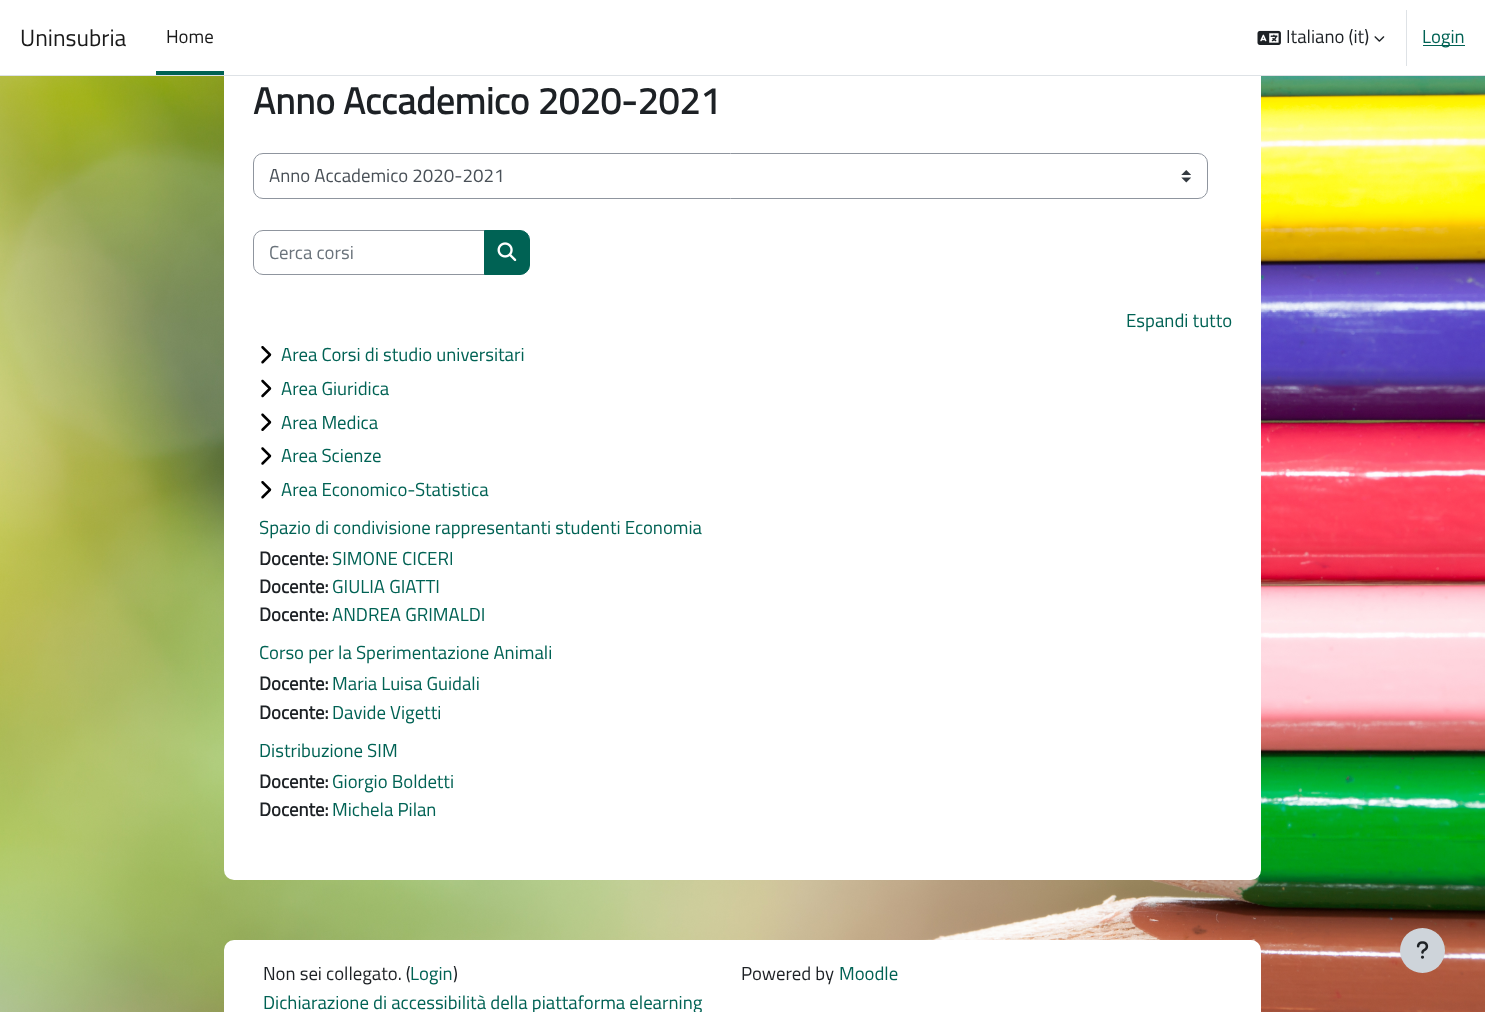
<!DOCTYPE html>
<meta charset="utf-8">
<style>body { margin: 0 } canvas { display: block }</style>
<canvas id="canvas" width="1485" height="1012"></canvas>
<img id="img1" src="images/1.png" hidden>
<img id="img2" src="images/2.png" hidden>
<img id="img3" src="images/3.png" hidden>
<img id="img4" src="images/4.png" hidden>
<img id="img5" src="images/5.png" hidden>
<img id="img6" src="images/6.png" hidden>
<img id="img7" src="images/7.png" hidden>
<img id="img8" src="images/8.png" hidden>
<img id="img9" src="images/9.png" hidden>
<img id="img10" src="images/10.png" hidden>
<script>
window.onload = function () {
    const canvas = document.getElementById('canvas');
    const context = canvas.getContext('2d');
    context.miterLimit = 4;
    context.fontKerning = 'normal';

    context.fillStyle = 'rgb(255, 255, 255)';
    context.fillRect(0, 0, 1485, 1012);
    context.drawImage(document.getElementById('img1'), 0, 76, 1485, 936);
    context.beginPath();
    context.roundRect(224, -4, 1037, 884, 10);
    context.fill();
    context.fillStyle = 'rgb(222, 226, 230)';
    context.fillRect(0, 75, 1485, 1);
    context.fillStyle = 'rgb(0, 98, 84)';
    context.fillRect(156, 71, 68, 4);
    context.drawImage(document.getElementById('img2'), 1257, 30, 24, 15);
    context.drawImage(document.getElementById('img3'), 1374, 36, 11, 6);
    context.fillStyle = 'rgb(222, 226, 230)';
    context.fillRect(1406, 10, 1, 56);
    context.fillStyle = 'rgb(0, 98, 84)';
    context.fillRect(1423, 45, 42, 1);
    context.drawImage(document.getElementById('img4'), 1181, 170, 10, 13);
    context.beginPath();
    context.roundRect(253.5, 153.5, 954, 45, 9.5);
    context.strokeStyle = 'rgb(143, 149, 158)';
    context.stroke();
    context.beginPath();
    context.roundRect(253.5, 230.5, 231, 44, [9.5, 0, 0, 9.5]);
    context.stroke();
    context.beginPath();
    context.roundRect(484.5, 230.5, 45, 44, [0, 9.5, 9.5, 0]);
    context.fill();
    context.strokeStyle = 'rgb(0, 98, 84)';
    context.stroke();
    context.drawImage(document.getElementById('img5'), 497, 242, 20, 20);
    context.drawImage(document.getElementById('img6'), 261, 346, 11, 18);
    context.drawImage(document.getElementById('img7'), 261, 379, 11, 19);
    context.drawImage(document.getElementById('img8'), 261, 413, 11, 18);
    context.drawImage(document.getElementById('img9'), 261, 447, 11, 18);
    context.drawImage(document.getElementById('img6'), 261, 481, 11, 18);
    context.fillStyle = 'rgb(255, 255, 255)';
    context.beginPath();
    context.roundRect(224, 940, 1037, 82, 10);
    context.fill();
    context.fillStyle = 'rgb(206, 212, 218)';
    context.beginPath();
    context.arc(1422.5, 950.5, 22.5, 0, 2 * Math.PI);
    context.fill();
    context.drawImage(document.getElementById('img10'), 1416, 941, 13, 18);
    context.font = '23.5px Titillium Web';
    context.fillStyle = 'rgb(26, 26, 26)';
    context.fillText('Uninsubria', 20, 46);
    context.font = '18.75px Titillium Web';
    context.fillText('Home', 166, 43);
    context.fillStyle = 'rgb(29, 33, 37)';
    context.fillText('Italiano (it)', 1286, 43);
    context.fillStyle = 'rgb(0, 98, 84)';
    context.fillText('Login', 1422, 43);
    context.font = 'bold 37.25px Titillium Web';
    context.fillStyle = 'rgb(29, 33, 37)';
    context.fillText('Anno Accademico 2020-2021', 253, 114);
    context.font = '18.75px Titillium Web';
    context.fillStyle = 'rgb(73, 80, 87)';
    context.fillText('Anno Accademico 2020-2021', 269, 182);
    context.fillStyle = 'rgb(106, 115, 123)';
    context.fillText('Cerca corsi', 269, 259);
    context.fillStyle = 'rgb(0, 98, 84)';
    context.fillText('Espandi tutto', 1126, 327);
    context.fillText('Area Corsi di studio universitari', 281, 361);
    context.fillText('Area Giuridica', 281, 395);
    context.fillText('Area Medica', 281, 429);
    context.fillText('Area Scienze', 281, 462);
    context.fillText('Area Economico-Statistica', 281, 496);
    context.fillText('Spazio di condivisione rappresentanti studenti Economia', 259, 534);
    context.font = 'bold 18.75px Titillium Web';
    context.fillStyle = 'rgb(29, 33, 37)';
    context.fillText('Docente:', 259, 565);
    context.font = '18.75px Titillium Web';
    context.fillStyle = 'rgb(0, 98, 84)';
    context.fillText('SIMONE CICERI', 332, 565);
    context.font = 'bold 18.75px Titillium Web';
    context.fillStyle = 'rgb(29, 33, 37)';
    context.fillText('Docente:', 259, 593);
    context.font = '18.75px Titillium Web';
    context.fillStyle = 'rgb(0, 98, 84)';
    context.fillText('GIULIA GIATTI', 332, 593);
    context.font = 'bold 18.75px Titillium Web';
    context.fillStyle = 'rgb(29, 33, 37)';
    context.fillText('Docente:', 259, 621);
    context.font = '18.75px Titillium Web';
    context.fillStyle = 'rgb(0, 98, 84)';
    context.fillText('ANDREA GRIMALDI', 332, 621);
    context.fillText('Corso per la Sperimentazione Animali', 259, 659);
    context.font = 'bold 18.75px Titillium Web';
    context.fillStyle = 'rgb(29, 33, 37)';
    context.fillText('Docente:', 259, 690);
    context.font = '18.75px Titillium Web';
    context.fillStyle = 'rgb(0, 98, 84)';
    context.fillText('Maria Luisa Guidali', 332, 690);
    context.font = 'bold 18.75px Titillium Web';
    context.fillStyle = 'rgb(29, 33, 37)';
    context.fillText('Docente:', 259, 719);
    context.font = '18.75px Titillium Web';
    context.fillStyle = 'rgb(0, 98, 84)';
    context.fillText('Davide Vigetti', 332, 719);
    context.fillText('Distribuzione SIM', 259, 757);
    context.font = 'bold 18.75px Titillium Web';
    context.fillStyle = 'rgb(29, 33, 37)';
    context.fillText('Docente:', 259, 788);
    context.font = '18.75px Titillium Web';
    context.fillStyle = 'rgb(0, 98, 84)';
    context.fillText('Giorgio Boldetti', 332, 788);
    context.font = 'bold 18.75px Titillium Web';
    context.fillStyle = 'rgb(29, 33, 37)';
    context.fillText('Docente:', 259, 816);
    context.font = '18.75px Titillium Web';
    context.fillStyle = 'rgb(0, 98, 84)';
    context.fillText('Michela Pilan', 332, 816);
    context.fillStyle = 'rgb(29, 33, 37)';
    context.fillText('Non sei collegato. (', 263, 980);
    context.fillStyle = 'rgb(0, 98, 84)';
    context.fillText('Login', 410, 980);
    context.fillStyle = 'rgb(29, 33, 37)';
    context.fillText(')', 453, 980);
    context.fillStyle = 'rgb(0, 98, 84)';
    context.fillText('Dichiarazione di accessibilità della piattaforma elearning', 263, 1009);
    context.fillStyle = 'rgb(29, 33, 37)';
    context.fillText('Powered by', 741, 980);
    context.fillStyle = 'rgb(0, 98, 84)';
    context.fillText('Moodle', 839, 980);
};
</script>
